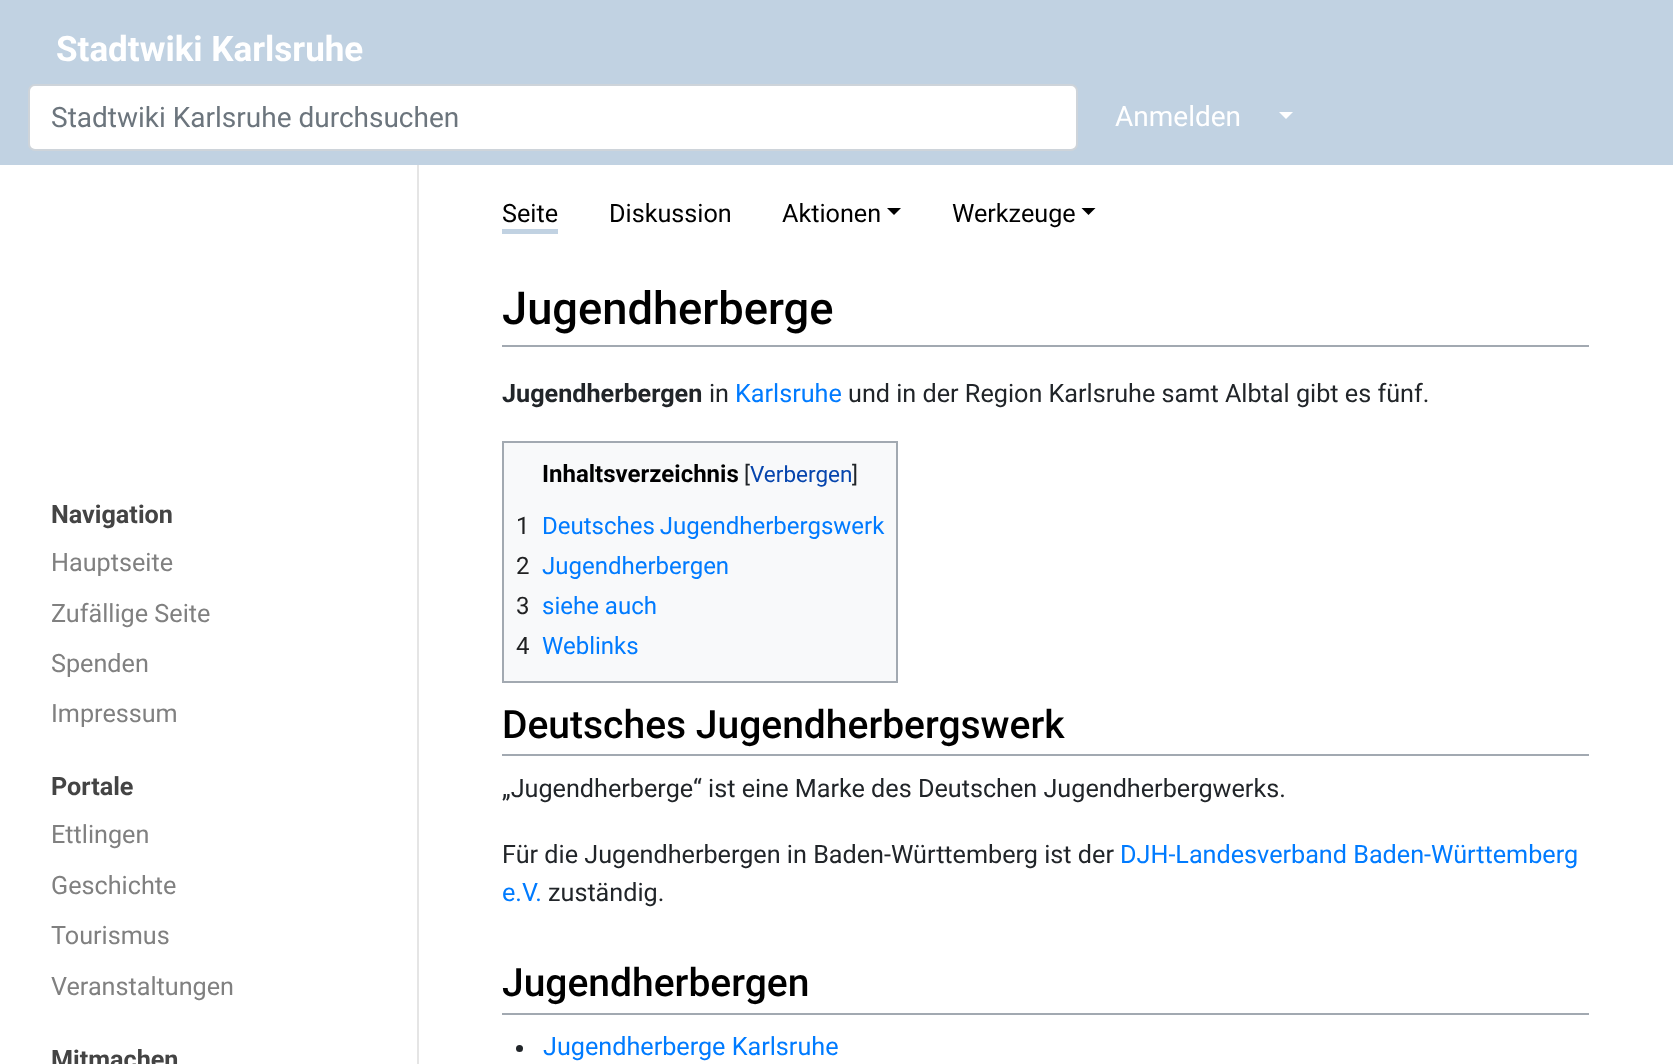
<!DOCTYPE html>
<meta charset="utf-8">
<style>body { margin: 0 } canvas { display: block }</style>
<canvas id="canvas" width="1673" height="1064"></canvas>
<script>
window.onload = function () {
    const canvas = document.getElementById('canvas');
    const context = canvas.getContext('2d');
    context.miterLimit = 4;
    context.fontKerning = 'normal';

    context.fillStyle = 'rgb(255, 255, 255)';
    context.fillRect(0, 0, 1673, 1064);
    context.fillStyle = 'rgb(193, 210, 226)';
    context.fillRect(0, 0, 1673, 165);
    context.fillStyle = 'rgb(255, 255, 255)';
    context.beginPath();
    context.roundRect(29, 85, 1048, 65, 6);
    context.fill();
    context.strokeStyle = 'rgb(206, 212, 218)';
    context.lineWidth = 2;
    context.stroke();
    context.beginPath();
    context.moveTo(1279, 112);
    context.lineTo(1293, 112);
    context.lineTo(1286, 119);
    context.closePath();
    context.fill();
    context.fillStyle = 'rgb(229, 229, 229)';
    context.fillRect(417, 165, 2, 899);
    context.fillStyle = 'rgb(193, 210, 226)';
    context.fillRect(502, 229, 56, 5);
    context.fillStyle = 'rgb(0, 0, 0)';
    context.beginPath();
    context.moveTo(887, 208);
    context.lineTo(901, 208);
    context.lineTo(894, 215);
    context.closePath();
    context.fill();
    context.beginPath();
    context.moveTo(1081.5, 208);
    context.lineTo(1095.5, 208);
    context.lineTo(1088.5, 215);
    context.closePath();
    context.fill();
    context.fillStyle = 'rgb(162, 169, 177)';
    context.fillRect(502, 345, 1087, 2);
    context.fillStyle = 'rgb(248, 249, 250)';
    context.beginPath();
    context.rect(503, 442, 394, 240);
    context.fill();
    context.strokeStyle = 'rgb(162, 169, 177)';
    context.stroke();
    context.fillStyle = 'rgb(162, 169, 177)';
    context.fillRect(502, 754, 1087, 2);
    context.fillRect(502, 1013, 1087, 2);
    context.fillStyle = 'rgb(33, 37, 41)';
    context.beginPath();
    context.arc(519.5, 1048.5, 3.5, 0, 2 * Math.PI);
    context.fill();
    context.font = 'bold 35px Roboto';
    context.fillStyle = 'rgb(255, 255, 255)';
    context.fillText('Stadtwiki Karlsruhe', 56, 61);
    context.font = '28px Roboto';
    context.fillStyle = 'rgb(108, 117, 125)';
    context.fillText('Stadtwiki Karlsruhe durchsuchen', 51, 127);
    context.fillStyle = 'rgb(255, 255, 255)';
    context.fillText('Anmelden', 1115, 126);
    context.font = 'bold 25.2px Roboto';
    context.fillStyle = 'rgb(68, 68, 68)';
    context.fillText('Navigation', 51, 523);
    context.font = '25.2px Roboto';
    context.fillStyle = 'rgb(128, 128, 128)';
    context.fillText('Hauptseite', 51, 571);
    context.fillText('Zufällige Seite', 51, 622);
    context.fillText('Spenden', 51, 672);
    context.fillText('Impressum', 51, 722);
    context.font = 'bold 25.2px Roboto';
    context.fillStyle = 'rgb(68, 68, 68)';
    context.fillText('Portale', 51, 795);
    context.font = '25.2px Roboto';
    context.fillStyle = 'rgb(128, 128, 128)';
    context.fillText('Ettlingen', 51, 843);
    context.fillText('Geschichte', 51, 894);
    context.fillText('Tourismus', 51, 944);
    context.fillText('Veranstaltungen', 51, 995);
    context.font = 'bold 25.2px Roboto';
    context.fillStyle = 'rgb(68, 68, 68)';
    context.fillText('Mitmachen', 51, 1068);
    context.font = '25.2px Roboto';
    context.fillStyle = 'rgb(0, 0, 0)';
    context.fillText('Seite', 502, 222);
    context.fillText('Diskussion', 609, 222);
    context.fillText('Aktionen', 782, 222);
    context.fillText('Werkzeuge', 952, 222);
    context.font = '500 45.25px Roboto';
    context.fillText('Jugendherberge', 502, 324);
    context.font = 'bold 25.2px Roboto';
    context.fillStyle = 'rgb(33, 37, 41)';
    context.fillText('Jugendherbergen', 502, 402);
    context.font = '25.2px Roboto';
    context.fillText('in', 709, 402);
    context.fillStyle = 'rgb(0, 123, 255)';
    context.fillText('Karlsruhe', 735, 402);
    context.fillStyle = 'rgb(33, 37, 41)';
    context.fillText('und in der Region Karlsruhe samt Albtal gibt es fünf.', 848, 402);
    context.font = 'bold 24px Roboto';
    context.fillStyle = 'rgb(0, 0, 0)';
    context.fillText('Inhaltsverzeichnis', 542, 482);
    context.font = '22.5px Roboto';
    context.fillStyle = 'rgb(33, 37, 41)';
    context.fillText('[', 744, 482);
    context.fillStyle = 'rgb(6, 69, 173)';
    context.fillText('Verbergen', 750, 482);
    context.fillStyle = 'rgb(33, 37, 41)';
    context.fillText(']', 852, 482);
    context.font = '24px Roboto';
    context.fillStyle = 'rgb(32, 33, 34)';
    context.fillText('1', 516, 534);
    context.wordSpacing = '-1px';
    context.fillStyle = 'rgb(0, 123, 255)';
    context.fillText('Deutsches Jugendherbergswerk', 542, 534);
    context.wordSpacing = '0px';
    context.fillStyle = 'rgb(32, 33, 34)';
    context.fillText('2', 516, 574);
    context.fillStyle = 'rgb(0, 123, 255)';
    context.fillText('Jugendherbergen', 542, 574);
    context.fillStyle = 'rgb(32, 33, 34)';
    context.fillText('3', 516, 614);
    context.fillStyle = 'rgb(0, 123, 255)';
    context.fillText('siehe auch', 542, 614);
    context.fillStyle = 'rgb(32, 33, 34)';
    context.fillText('4', 516, 654);
    context.fillStyle = 'rgb(0, 123, 255)';
    context.fillText('Weblinks', 542, 654);
    context.font = '500 39px Roboto';
    context.fillStyle = 'rgb(0, 0, 0)';
    context.fillText('Deutsches Jugendherbergswerk', 502, 738);
    context.font = '25.2px Roboto';
    context.fillStyle = 'rgb(33, 37, 41)';
    context.fillText('„Jugendherberge“ ist eine Marke des Deutschen Jugendherbergwerks.', 502, 797);
    context.fillText('Für die Jugendherbergen in Baden-Württemberg ist der', 502, 863);
    context.fillStyle = 'rgb(0, 123, 255)';
    context.fillText('DJH-Landesverband Baden-Württemberg', 1120, 863);
    context.fillText('e.V.', 502, 901);
    context.fillStyle = 'rgb(33, 37, 41)';
    context.fillText('zuständig.', 548, 901);
    context.font = '500 39px Roboto';
    context.fillStyle = 'rgb(0, 0, 0)';
    context.fillText('Jugendherbergen', 502, 996);
    context.font = '25.2px Roboto';
    context.fillStyle = 'rgb(0, 123, 255)';
    context.fillText('Jugendherberge Karlsruhe', 543, 1055);
};
</script>
